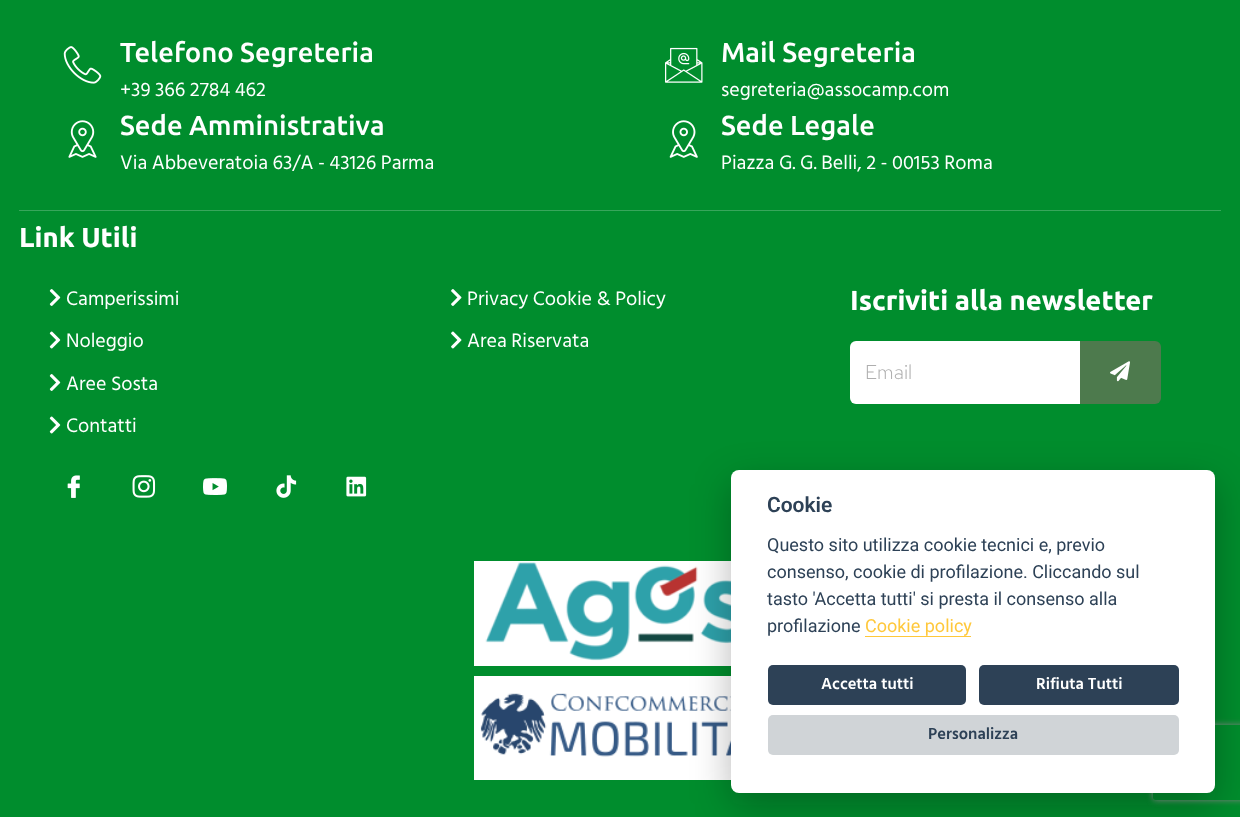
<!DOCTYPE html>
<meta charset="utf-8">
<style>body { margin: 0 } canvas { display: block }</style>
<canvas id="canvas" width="1240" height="817"></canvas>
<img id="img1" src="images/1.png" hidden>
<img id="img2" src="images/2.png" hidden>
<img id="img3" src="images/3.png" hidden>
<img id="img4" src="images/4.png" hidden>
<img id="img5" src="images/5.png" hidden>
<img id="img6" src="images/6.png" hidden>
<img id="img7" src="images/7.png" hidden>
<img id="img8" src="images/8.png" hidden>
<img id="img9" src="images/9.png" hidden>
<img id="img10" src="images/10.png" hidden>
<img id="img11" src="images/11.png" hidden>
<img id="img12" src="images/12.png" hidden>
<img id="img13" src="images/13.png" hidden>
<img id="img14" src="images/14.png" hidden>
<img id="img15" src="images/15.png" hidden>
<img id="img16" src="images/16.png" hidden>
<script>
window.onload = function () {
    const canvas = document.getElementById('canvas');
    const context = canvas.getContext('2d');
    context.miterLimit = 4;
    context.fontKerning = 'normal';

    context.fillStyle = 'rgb(0, 141, 45)';
    context.fillRect(0, 0, 1240, 817);
    context.fillStyle = 'rgb(56, 166, 91)';
    context.fillRect(19, 210, 1202, 1);
    context.drawImage(document.getElementById('img1'), 63, 46, 39, 38);
    context.drawImage(document.getElementById('img2'), 665, 47, 38, 36);
    context.drawImage(document.getElementById('img3'), 68, 120, 29, 38);
    context.drawImage(document.getElementById('img4'), 669, 120, 29, 38);
    context.drawImage(document.getElementById('img5'), 49, 289, 12, 17);
    context.drawImage(document.getElementById('img6'), 49, 331, 12, 18);
    context.drawImage(document.getElementById('img5'), 49, 374, 12, 17);
    context.drawImage(document.getElementById('img6'), 49, 416, 12, 18);
    context.drawImage(document.getElementById('img7'), 451, 289, 11, 17);
    context.drawImage(document.getElementById('img8'), 451, 331, 11, 18);
    context.fillStyle = 'rgb(255, 255, 255)';
    context.beginPath();
    context.roundRect(850, 341, 230, 63, [6, 0, 0, 6]);
    context.fill();
    context.fillStyle = 'rgb(77, 122, 77)';
    context.beginPath();
    context.roundRect(1080, 341, 81, 63, [0, 6, 6, 0]);
    context.fill();
    context.drawImage(document.getElementById('img9'), 1110, 361, 20, 21);
    context.drawImage(document.getElementById('img10'), 67, 475, 13, 23);
    context.drawImage(document.getElementById('img11'), 132, 475, 24, 23);
    context.drawImage(document.getElementById('img12'), 203, 478, 24, 17);
    context.drawImage(document.getElementById('img13'), 276, 475, 21, 23);
    context.drawImage(document.getElementById('img14'), 346, 476, 21, 21);
    context.fillStyle = 'rgb(255, 255, 255)';
    context.fillRect(474, 561, 257, 105);
    context.drawImage(document.getElementById('img15'), 485, 562, 246, 99);
    context.fillRect(474, 676, 257, 104);
    context.drawImage(document.getElementById('img16'), 480, 693, 251, 64);
    context.fillStyle = 'rgba(2, 2, 3, 0.28)';
    context.filter = 'blur(19px)';
    context.beginPath();
    context.roundRect(731, 483, 484, 322, 8);
    context.fill();
    context.filter = 'none';
    context.save();
    context.beginPath();
    context.moveTo(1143, 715);
    context.lineTo(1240, 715);
    context.lineTo(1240, 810);
    context.lineTo(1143, 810);
    context.closePath();
    context.moveTo(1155.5, 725);
    context.lineTo(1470.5, 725);
    context.bezierCurveTo(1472, 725, 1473, 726, 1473, 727.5);
    context.lineTo(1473, 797.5);
    context.bezierCurveTo(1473, 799, 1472, 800, 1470.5, 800);
    context.lineTo(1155.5, 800);
    context.bezierCurveTo(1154, 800, 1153, 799, 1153, 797.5);
    context.lineTo(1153, 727.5);
    context.bezierCurveTo(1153, 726, 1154, 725, 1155.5, 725);
    context.closePath();
    context.clip('evenodd');
    context.fillStyle = 'rgb(128, 128, 128)';
    context.filter = 'blur(3px)';
    context.beginPath();
    context.roundRect(1153, 725, 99, 75, 2.5);
    context.fill();
    context.filter = 'none';
    context.restore();
    context.fillStyle = 'rgb(255, 255, 255)';
    context.beginPath();
    context.roundRect(731, 470, 484, 323, 8);
    context.fill();
    context.fillStyle = 'rgb(255, 200, 59)';
    context.fillRect(865, 636, 106, 1);
    context.fillStyle = 'rgb(45, 65, 86)';
    context.beginPath();
    context.roundRect(768, 665, 198, 40, 5);
    context.fill();
    context.beginPath();
    context.roundRect(979, 665, 200, 40, 5);
    context.fill();
    context.fillStyle = 'rgb(208, 212, 215)';
    context.beginPath();
    context.roundRect(768, 715, 411, 40, 5);
    context.fill();
    context.font = '500 27.5px Ubuntu';
    context.fillStyle = 'rgb(255, 255, 255)';
    context.fillText('Telefono Segreteria', 120, 62);
    context.font = '20px Hind Siliguri';
    context.fillText('+39 366 2784 462', 120, 96);
    context.font = '500 27.5px Ubuntu';
    context.fillText('Mail Segreteria', 721, 62);
    context.font = '20px Hind Siliguri';
    context.fillText('segreteria@assocamp.com', 721, 96);
    context.font = '500 27.5px Ubuntu';
    context.fillText('Sede Amministrativa', 120, 135);
    context.font = '20px Hind Siliguri';
    context.fillText('Via Abbeveratoia 63/A - 43126 Parma', 120, 169);
    context.font = '500 27.5px Ubuntu';
    context.fillText('Sede Legale', 721, 135);
    context.font = '20px Hind Siliguri';
    context.fillText('Piazza G. G. Belli, 2 - 00153 Roma', 721, 169);
    context.font = 'bold 27.5px Ubuntu';
    context.fillText('Link Utili', 19, 247);
    context.font = '20px Hind Siliguri';
    context.fillText('Camperissimi', 66, 305);
    context.fillText('Noleggio', 66, 347);
    context.fillText('Aree Sosta', 66, 390);
    context.fillText('Contatti', 66, 432);
    context.fillText('Privacy Cookie & Policy', 467, 305);
    context.fillText('Area Riservata', 467, 347);
    context.font = 'bold 27.5px Ubuntu';
    context.fillText('Iscriviti alla newsletter', 850, 310);
    context.font = '300 20px Red Hat Text';
    context.fillStyle = 'rgb(174, 174, 174)';
    context.fillText('Email', 865, 379);
    context.font = '600 21px Roboto';
    context.fillStyle = 'rgb(45, 65, 86)';
    context.fillText('Cookie', 767, 512);
    context.font = '18px Roboto';
    context.fillText('Questo sito utilizza cookie tecnici e, previo', 767, 551);
    context.fillText('consenso, cookie di profilazione. Cliccando sul', 767, 578);
    context.fillText('tasto \'Accetta tutti\' si presta il consenso alla', 767, 605);
    context.fillText('profilazione', 767, 632);
    context.fillStyle = 'rgb(255, 200, 59)';
    context.fillText('Cookie policy', 865, 632);
    context.font = '600 16.5px Hind Siliguri';
    context.fillStyle = 'rgb(255, 255, 255)';
    context.fillText('Accetta tutti', 821, 689);
    context.fillText('Rifiuta Tutti', 1036, 689);
    context.fillStyle = 'rgb(45, 65, 86)';
    context.fillText('Personalizza', 928, 739);
};
</script>
